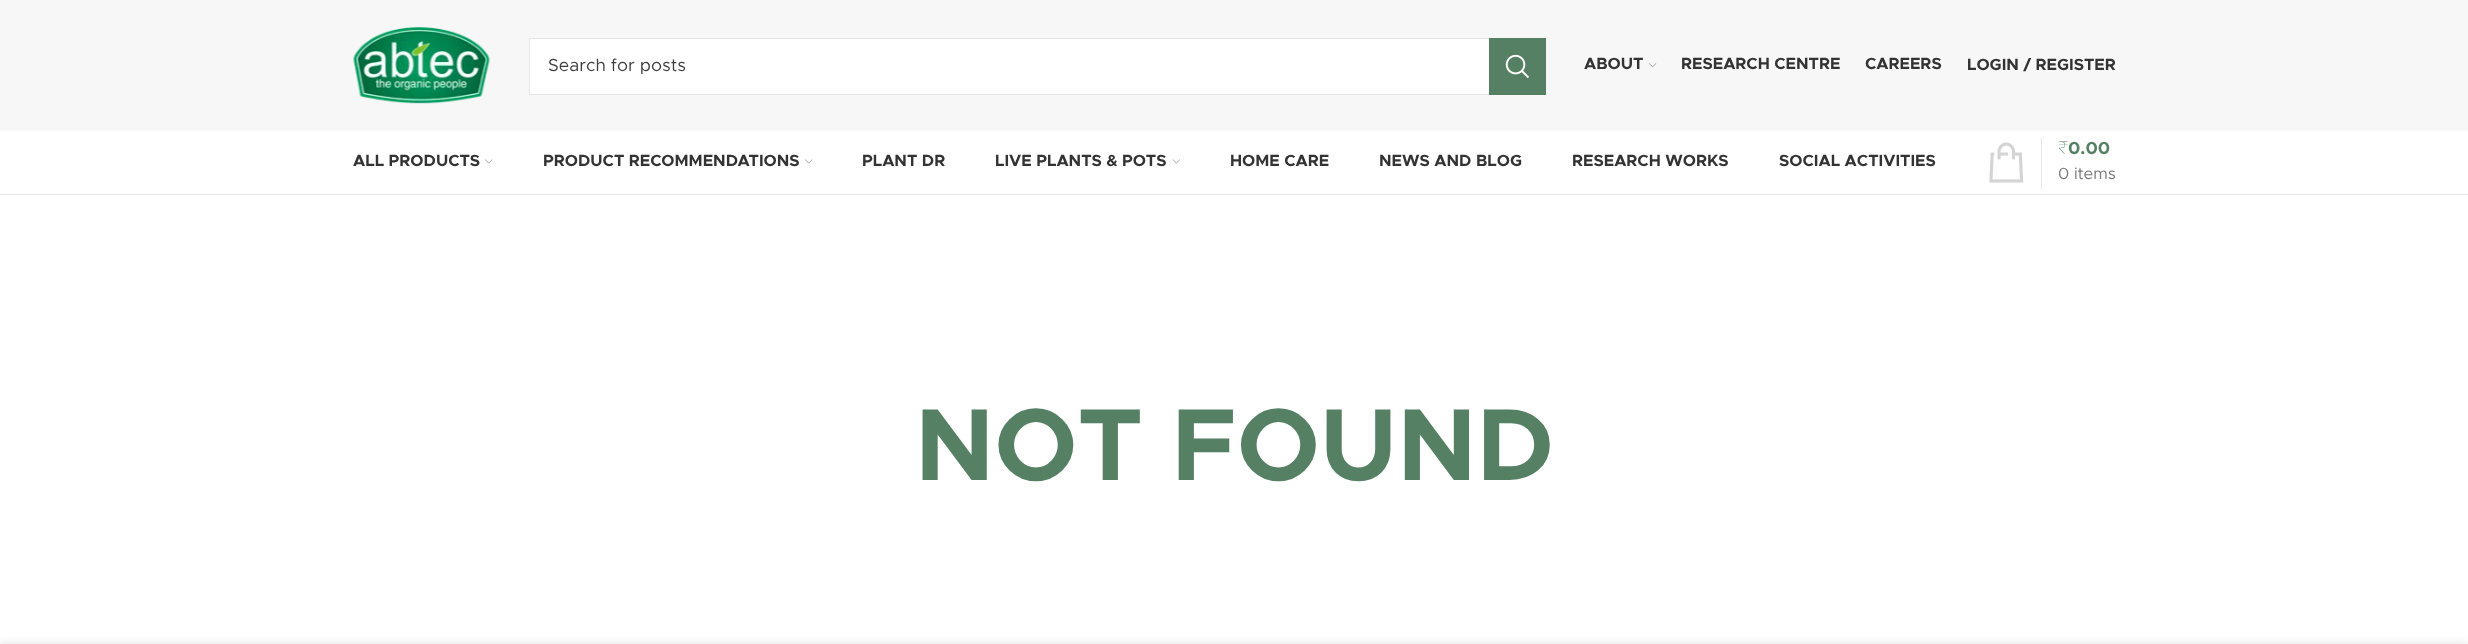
<!DOCTYPE html>
<meta charset="utf-8">
<style>body { margin: 0 } canvas { display: block }</style>
<canvas id="canvas" width="2468" height="644"></canvas>
<img id="img1" src="images/1.png" hidden>
<img id="img2" src="images/2.png" hidden>
<img id="img3" src="images/3.png" hidden>
<img id="img4" src="images/4.png" hidden>
<img id="img5" src="images/5.png" hidden>
<img id="img6" src="images/6.png" hidden>
<script>
window.onload = function () {
    const canvas = document.getElementById('canvas');
    const context = canvas.getContext('2d');
    context.miterLimit = 4;
    context.fontKerning = 'normal';

    context.fillStyle = 'rgb(255, 255, 255)';
    context.fillRect(0, 0, 2468, 644);
    context.fillStyle = 'rgb(247, 247, 247)';
    context.fillRect(0, 0, 2468, 131);
    context.drawImage(document.getElementById('img1'), 353, 27, 137, 77);
    context.fillStyle = 'rgb(255, 255, 255)';
    context.fillRect(530, 39, 959, 55);
    context.strokeStyle = 'rgb(230, 230, 230)';
    context.strokeRect(529.5, 38.5, 1016, 56);
    context.fillStyle = 'rgb(85, 128, 99)';
    context.fillRect(1489, 38, 57, 57);
    context.drawImage(document.getElementById('img2'), 1505, 54, 24, 25);
    context.drawImage(document.getElementById('img3'), 1648, 63, 9, 5);
    context.fillStyle = 'rgb(230, 230, 230)';
    context.fillRect(0, 194, 2468, 1);
    context.drawImage(document.getElementById('img4'), 485, 159, 8, 5);
    context.drawImage(document.getElementById('img4'), 805, 159, 8, 5);
    context.drawImage(document.getElementById('img5'), 1172, 159, 8, 5);
    context.drawImage(document.getElementById('img6'), 1989, 142, 35, 41);
    context.fillRect(2041, 138, 1, 51);
    context.fillStyle = 'rgba(0, 0, 0, 0.14)';
    context.filter = 'blur(5.5px)';
    context.beginPath();
    context.rect(0, 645, 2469, 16);
    context.fill();
    context.filter = 'none';
    context.font = '17.5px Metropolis';
    context.fillStyle = 'rgb(61, 61, 61)';
    context.fillText('Search for posts', 548, 71);
    context.font = 'bold 16.25px Metropolis';
    context.fillStyle = 'rgb(51, 51, 51)';
    context.fillText('ABOUT', 1584, 69);
    context.fillText('RESEARCH CENTRE', 1681, 69);
    context.fillText('CAREERS', 1865, 69);
    context.fillText('LOGIN / REGISTER', 1967, 70);
    context.fillText('ALL PRODUCTS', 353, 166);
    context.fillText('PRODUCT RECOMMENDATIONS', 543, 166);
    context.fillText('PLANT DR', 862, 166);
    context.fillText('LIVE PLANTS & POTS', 995, 166);
    context.fillText('HOME CARE', 1230, 166);
    context.fillText('NEWS AND BLOG', 1379, 166);
    context.fillText('RESEARCH WORKS', 1572, 166);
    context.fillText('SOCIAL ACTIVITIES', 1779, 166);
    context.font = '100 17.5px Noto Sans';
    context.fillStyle = 'rgb(85, 128, 99)';
    context.fillText('₹', 2058, 154);
    context.font = 'bold 17.5px Metropolis';
    context.fillText('0.00', 2068, 154);
    context.font = '16.25px Metropolis';
    context.fillStyle = 'rgb(118, 118, 118)';
    context.fillText('0 items', 2058, 179);
    context.font = 'bold 102.5px Metropolis';
    context.fillStyle = 'rgb(85, 128, 99)';
    context.fillText('NOT FOUND', 915, 480);
};
</script>
